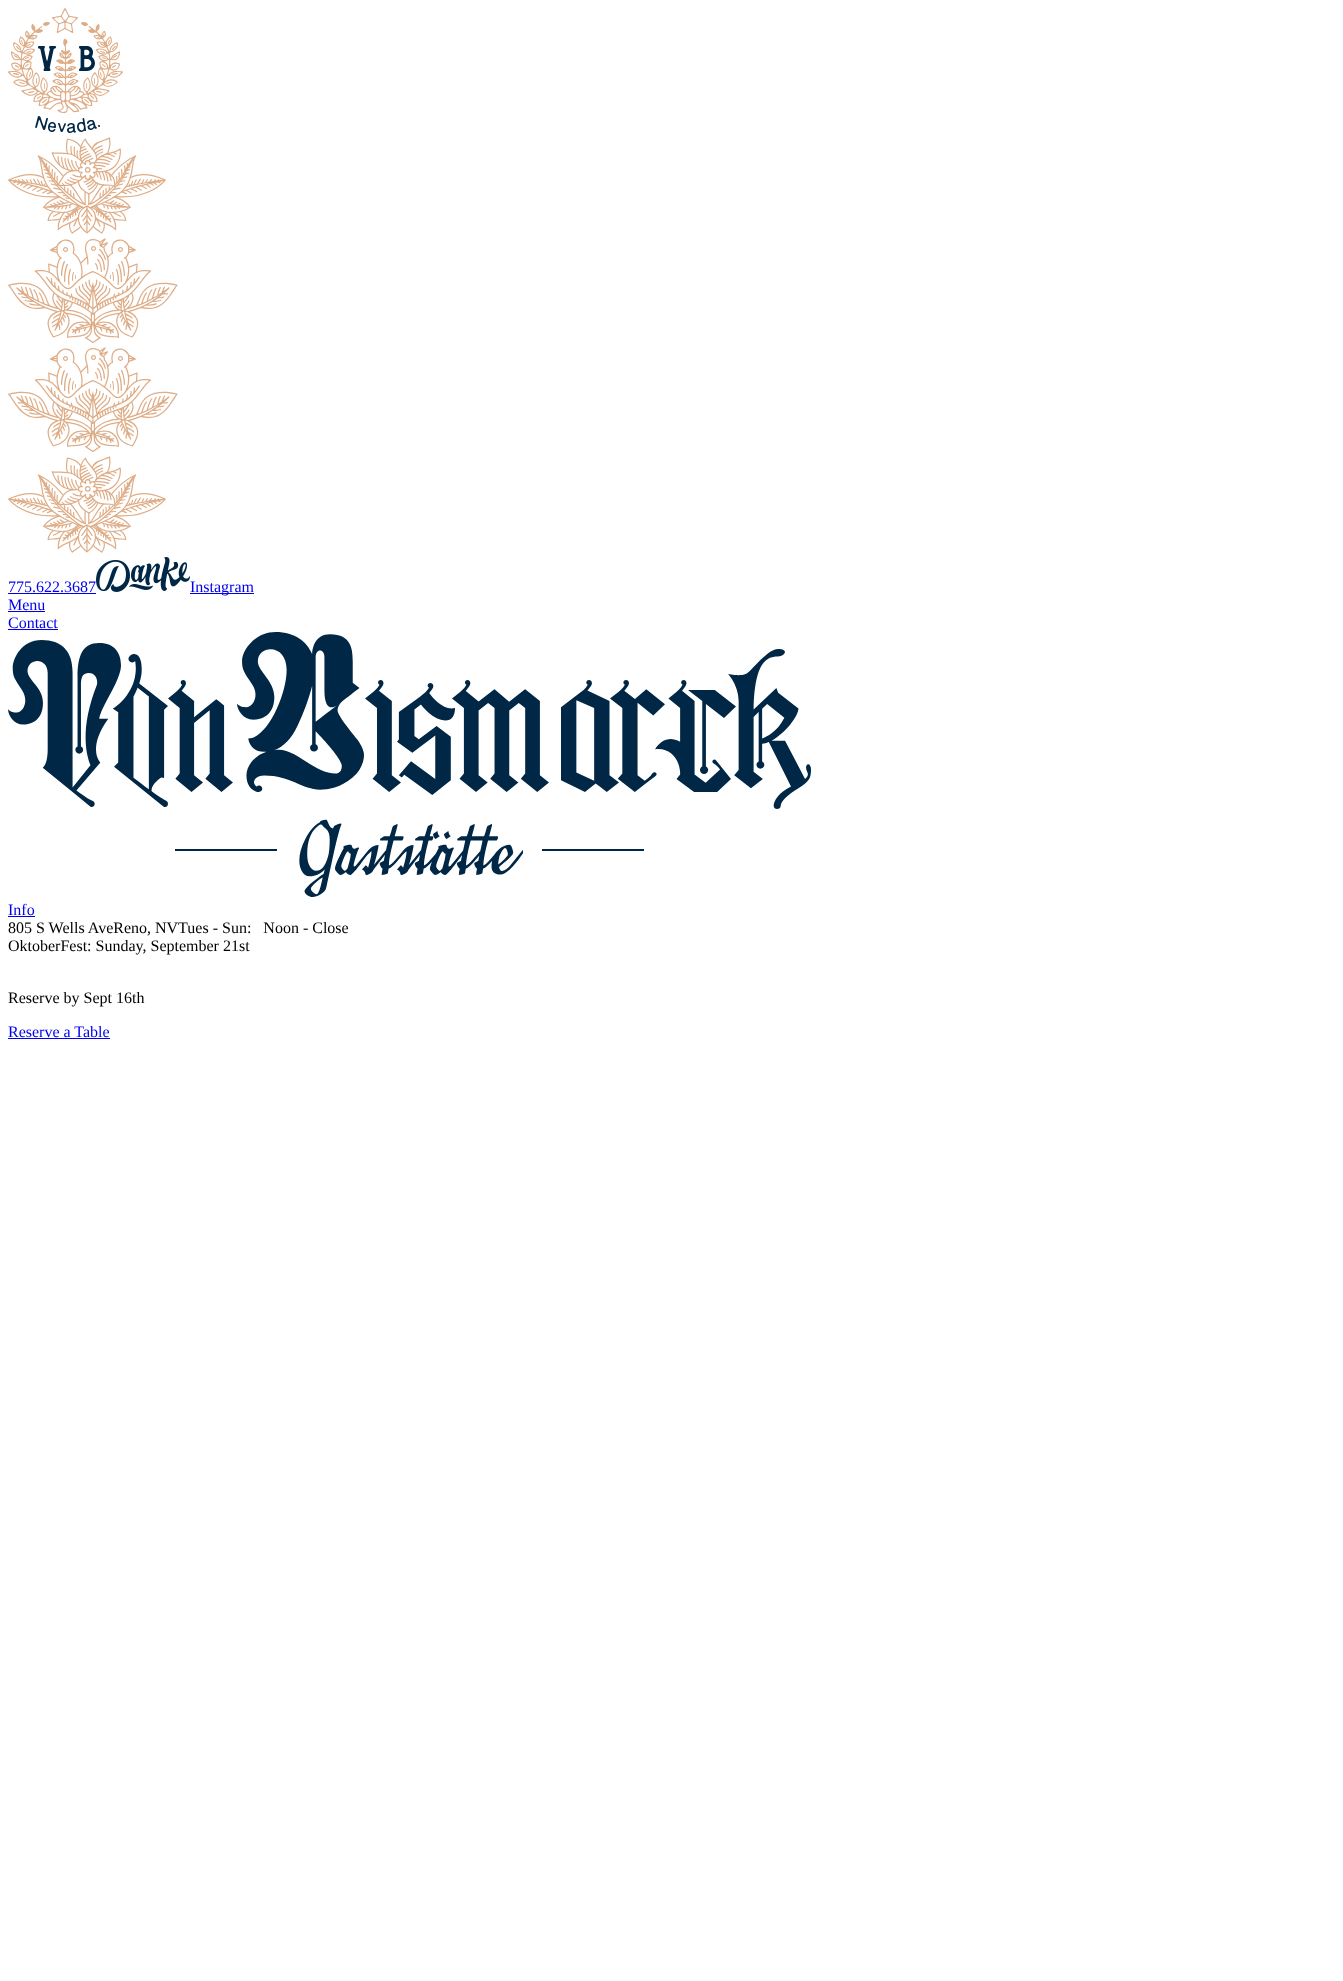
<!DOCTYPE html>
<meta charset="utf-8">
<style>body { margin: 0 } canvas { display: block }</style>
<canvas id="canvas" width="1343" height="1981"></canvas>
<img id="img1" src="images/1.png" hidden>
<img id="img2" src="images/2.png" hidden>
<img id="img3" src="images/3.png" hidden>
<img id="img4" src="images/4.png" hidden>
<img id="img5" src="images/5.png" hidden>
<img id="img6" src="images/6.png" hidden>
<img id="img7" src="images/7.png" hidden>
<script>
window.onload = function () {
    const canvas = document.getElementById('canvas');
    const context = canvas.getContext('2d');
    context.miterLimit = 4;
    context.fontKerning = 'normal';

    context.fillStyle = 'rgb(255, 255, 255)';
    context.fillRect(0, 0, 1343, 1981);
    context.drawImage(document.getElementById('img1'), 8, 8, 115, 125);
    context.drawImage(document.getElementById('img2'), 8, 137, 158, 97);
    context.drawImage(document.getElementById('img3'), 8, 238, 170, 105);
    context.drawImage(document.getElementById('img4'), 8, 347, 170, 105);
    context.drawImage(document.getElementById('img5'), 8, 456, 158, 97);
    context.fillStyle = 'rgb(0, 0, 238)';
    context.fillRect(8, 593, 88, 1);
    context.drawImage(document.getElementById('img6'), 96, 557, 94, 35);
    context.fillRect(190, 593, 64, 1);
    context.fillRect(8, 611, 37, 1);
    context.fillRect(8, 629, 50, 1);
    context.drawImage(document.getElementById('img7'), 8, 632, 803, 265);
    context.fillRect(8, 916, 27, 1);
    context.fillRect(8, 1038, 102, 1);
    context.font = '16px Liberation Serif';
    context.fillText('775.622.3687', 8, 592);
    context.fillText('Instagram', 190, 592);
    context.fillText('Menu', 8, 610);
    context.fillText('Contact', 8, 628);
    context.fillText('Info', 8, 915);
    context.fillStyle = 'rgb(0, 0, 0)';
    context.fillText('805 S Wells AveReno, NVTues - Sun:   Noon - Close', 8, 933);
    context.fillText('OktoberFest: Sunday, September 21st', 8, 951);
    context.fillText('Reserve by Sept 16th', 8, 1003);
    context.fillStyle = 'rgb(0, 0, 238)';
    context.fillText('Reserve a Table', 8, 1037);
};
</script>
